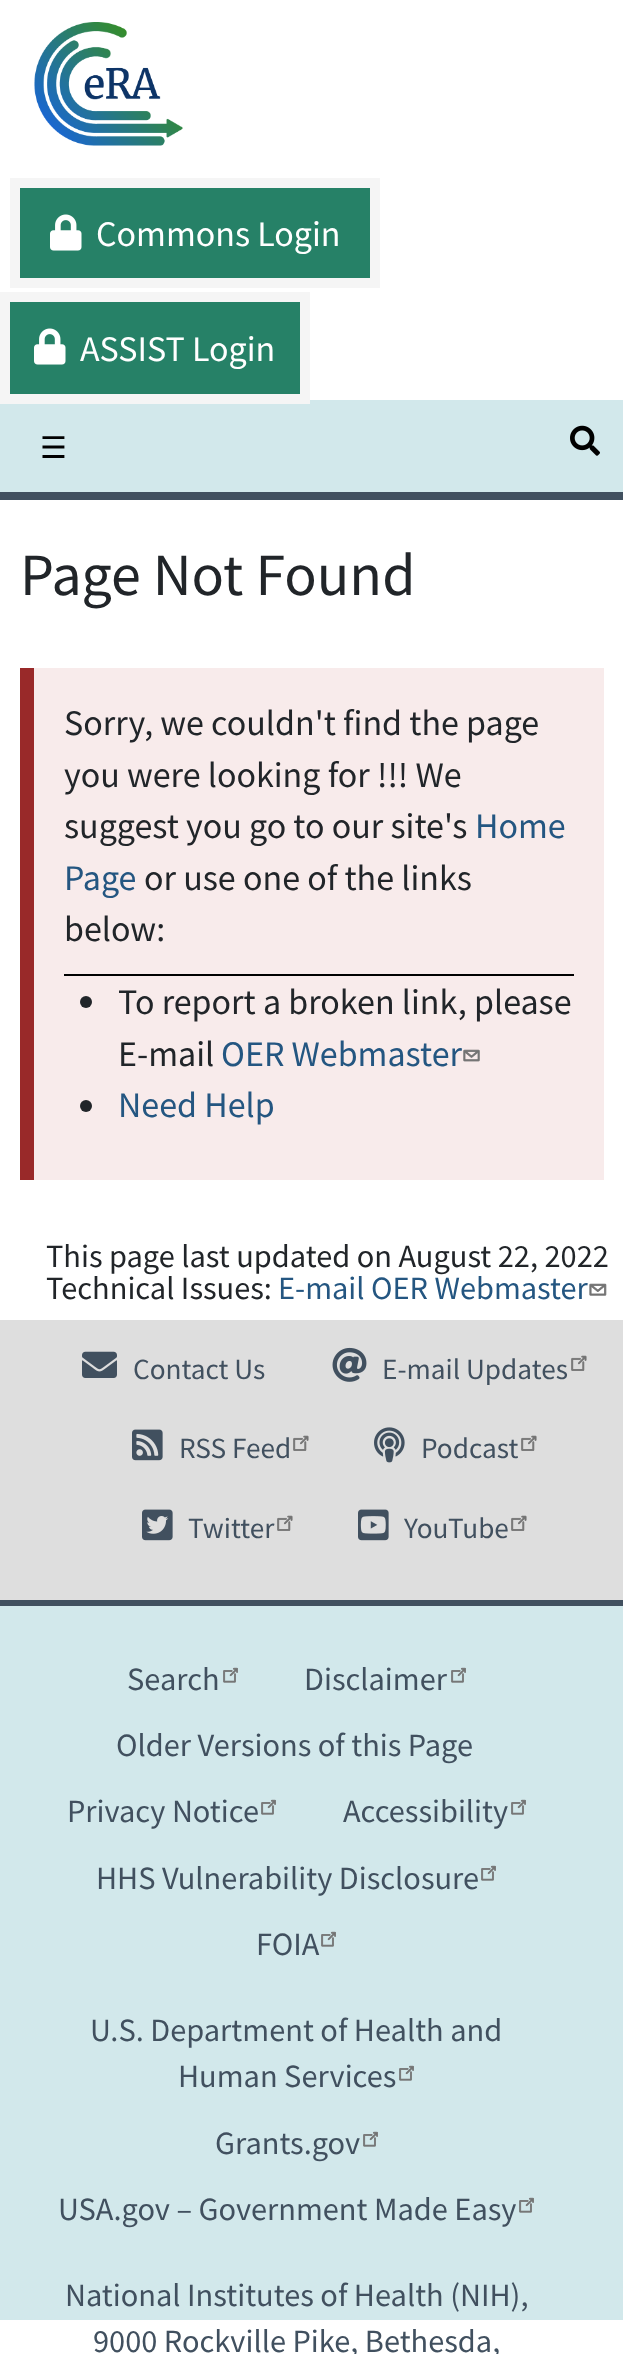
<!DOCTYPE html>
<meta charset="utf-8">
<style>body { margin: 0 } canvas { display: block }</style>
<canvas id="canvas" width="623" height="2354"></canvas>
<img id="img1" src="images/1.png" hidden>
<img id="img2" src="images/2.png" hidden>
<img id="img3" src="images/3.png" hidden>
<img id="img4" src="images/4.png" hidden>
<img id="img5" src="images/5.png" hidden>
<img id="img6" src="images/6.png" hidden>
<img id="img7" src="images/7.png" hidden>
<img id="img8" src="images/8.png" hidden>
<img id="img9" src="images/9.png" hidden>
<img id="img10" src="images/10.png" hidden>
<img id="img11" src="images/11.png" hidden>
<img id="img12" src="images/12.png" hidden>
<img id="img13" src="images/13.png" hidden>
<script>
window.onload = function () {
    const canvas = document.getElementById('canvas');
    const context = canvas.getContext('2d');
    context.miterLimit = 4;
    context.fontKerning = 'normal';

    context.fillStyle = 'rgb(255, 255, 255)';
    context.fillRect(0, 0, 623, 2354);
    context.drawImage(document.getElementById('img1'), 34, 22, 149, 124);
    context.fillStyle = 'rgb(38, 129, 103)';
    context.beginPath();
    context.rect(15, 183, 360, 100);
    context.fill();
    context.strokeStyle = 'rgb(245, 245, 245)';
    context.lineWidth = 10;
    context.stroke();
    context.drawImage(document.getElementById('img2'), 50, 214, 32, 37);
    context.fillStyle = 'rgb(210, 232, 235)';
    context.fillRect(0, 400, 623, 92);
    context.fillStyle = 'rgb(38, 129, 103)';
    context.beginPath();
    context.rect(5, 297, 300, 102);
    context.fill();
    context.stroke();
    context.drawImage(document.getElementById('img2'), 34, 328, 32, 37);
    context.drawImage(document.getElementById('img3'), 570, 425, 30, 31);
    context.fillStyle = 'rgb(65, 80, 95)';
    context.fillRect(0, 492, 623, 8);
    context.fillStyle = 'rgb(248, 235, 235)';
    context.fillRect(34, 668, 570, 512);
    context.fillStyle = 'rgb(153, 41, 41)';
    context.fillRect(20, 668, 14, 512);
    context.fillStyle = 'rgb(0, 0, 0)';
    context.fillRect(64, 974, 510, 2);
    context.fillStyle = 'rgb(33, 37, 41)';
    context.beginPath();
    context.arc(86, 1002, 6, 0, 2 * Math.PI);
    context.fill();
    context.drawImage(document.getElementById('img4'), 463, 1049, 17, 13);
    context.beginPath();
    context.arc(86, 1106, 6, 0, 2 * Math.PI);
    context.fill();
    context.drawImage(document.getElementById('img5'), 589, 1283, 18, 13);
    context.fillStyle = 'rgb(210, 232, 235)';
    context.fillRect(0, 1606, 623, 714);
    context.fillStyle = 'rgb(222, 222, 222)';
    context.fillRect(0, 1320, 623, 280);
    context.drawImage(document.getElementById('img6'), 82, 1351, 35, 27);
    context.drawImage(document.getElementById('img7'), 332, 1347, 35, 35);
    context.drawImage(document.getElementById('img8'), 571, 1355, 16, 16);
    context.drawImage(document.getElementById('img9'), 132, 1429, 31, 32);
    context.drawImage(document.getElementById('img8'), 293, 1435, 16, 16);
    context.drawImage(document.getElementById('img10'), 374, 1427, 31, 36);
    context.drawImage(document.getElementById('img8'), 521, 1435, 16, 16);
    context.drawImage(document.getElementById('img11'), 142, 1509, 31, 32);
    context.drawImage(document.getElementById('img8'), 277, 1515, 16, 16);
    context.drawImage(document.getElementById('img12'), 358, 1509, 31, 32);
    context.drawImage(document.getElementById('img8'), 511, 1515, 16, 16);
    context.fillStyle = 'rgb(65, 80, 95)';
    context.fillRect(0, 1600, 623, 6);
    context.drawImage(document.getElementById('img13'), 223, 1667, 15, 16);
    context.drawImage(document.getElementById('img13'), 451, 1667, 15, 16);
    context.drawImage(document.getElementById('img13'), 261, 1799, 15, 16);
    context.drawImage(document.getElementById('img13'), 511, 1799, 15, 16);
    context.drawImage(document.getElementById('img13'), 481, 1865, 15, 16);
    context.drawImage(document.getElementById('img13'), 321, 1931, 15, 16);
    context.drawImage(document.getElementById('img13'), 399, 2065, 15, 16);
    context.drawImage(document.getElementById('img13'), 363, 2131, 15, 16);
    context.drawImage(document.getElementById('img13'), 519, 2197, 15, 16);
    context.font = '36px Source Sans Pro';
    context.fillStyle = 'rgb(255, 255, 255)';
    context.fillText('Commons Login', 96, 246);
    context.fillText('ASSIST Login', 80, 361);
    context.font = '30px DejaVu Sans';
    context.fillStyle = 'rgb(0, 0, 0)';
    context.fillText('☰', 40, 458);
    context.font = '60px Source Sans Pro';
    context.fillStyle = 'rgb(33, 37, 41)';
    context.fillText('Page Not Found', 20, 595);
    context.font = '36px Source Sans Pro';
    context.fillText('Sorry, we couldn\'t find the page', 64, 735);
    context.fillText('you were looking for !!! We', 64, 787);
    context.fillText('suggest you go to our site\'s', 64, 838);
    context.fillStyle = 'rgb(36, 86, 129)';
    context.fillText('Home', 475, 838);
    context.fillText('Page', 64, 890);
    context.fillStyle = 'rgb(33, 37, 41)';
    context.fillText('or use one of the links', 144, 890);
    context.fillText('below:', 64, 941);
    context.fillText('To report a broken link, please', 118, 1014);
    context.fillText('E-mail', 118, 1066);
    context.fillStyle = 'rgb(36, 86, 129)';
    context.fillText('OER Webmaster', 221, 1066);
    context.fillText('Need Help', 118, 1117);
    context.font = '32.4px Source Sans Pro';
    context.fillStyle = 'rgb(33, 37, 41)';
    context.fillText('This page last updated on August 22, 2022', 46, 1267);
    context.fillText('Technical Issues:', 46, 1299);
    context.fillStyle = 'rgb(36, 86, 129)';
    context.fillText('E-mail OER Webmaster', 278, 1299);
    context.font = '29.25px Source Sans Pro';
    context.fillStyle = 'rgb(65, 80, 95)';
    context.fillText('Contact Us', 133, 1379);
    context.fillText('E-mail Updates', 382, 1379);
    context.fillText('RSS Feed', 179, 1458);
    context.fillText('Podcast', 421, 1458);
    context.fillText('Twitter', 188, 1538);
    context.fillText('YouTube', 404, 1538);
    context.font = '32.4px Source Sans Pro';
    context.fillText('Search', 127, 1690);
    context.fillText('Disclaimer', 304, 1690);
    context.fillText('Older Versions of this Page', 116, 1756);
    context.fillText('Privacy Notice', 67, 1822);
    context.fillText('Accessibility', 343, 1822);
    context.fillText('HHS Vulnerability Disclosure', 96, 1889);
    context.fillText('FOIA', 256, 1955);
    context.fillText('U.S. Department of Health and', 90, 2041);
    context.fillText('Human Services', 178, 2087);
    context.fillText('Grants.gov', 215, 2154);
    context.fillText('USA.gov – Government Made Easy', 58, 2220);
    context.fillText('National Institutes of Health (NIH),', 65, 2306);
    context.fillText('9000 Rockville Pike, Bethesda,', 93, 2352);
};
</script>
